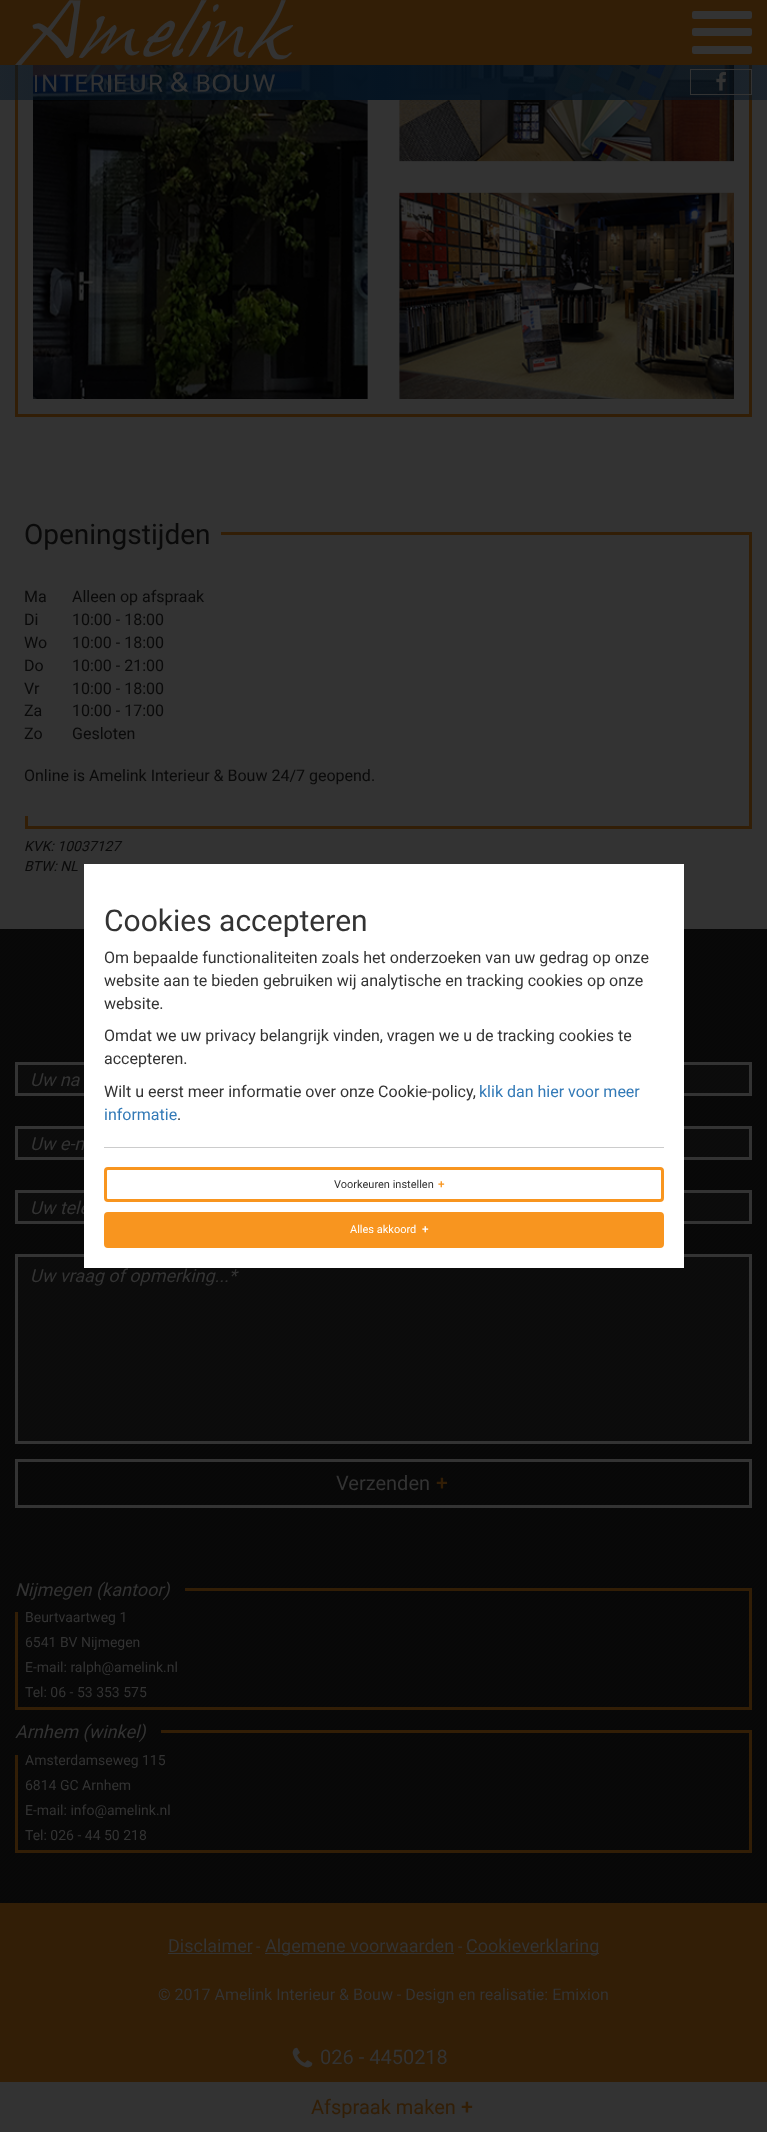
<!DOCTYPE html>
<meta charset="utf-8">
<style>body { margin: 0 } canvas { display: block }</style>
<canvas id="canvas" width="767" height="2132"></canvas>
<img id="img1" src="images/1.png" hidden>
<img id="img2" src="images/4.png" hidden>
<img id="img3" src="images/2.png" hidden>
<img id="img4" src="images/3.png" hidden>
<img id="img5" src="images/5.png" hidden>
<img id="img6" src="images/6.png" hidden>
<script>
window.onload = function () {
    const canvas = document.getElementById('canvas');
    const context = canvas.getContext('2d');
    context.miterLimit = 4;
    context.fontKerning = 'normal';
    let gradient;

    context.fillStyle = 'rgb(51, 51, 51)';
    context.fillRect(0, 0, 767, 2132);
    context.strokeStyle = 'rgb(50, 30, 6)';
    context.lineWidth = 3;
    context.strokeRect(16.5, -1.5, 734, 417);
    context.fillStyle = 'rgb(50, 30, 6)';
    context.fillRect(0, 0, 767, 65);
    context.drawImage(document.getElementById('img1'), 15, 0, 278, 65);
    context.drawImage(document.getElementById('img2'), 33, 65, 701, 334);
    gradient = context.createLinearGradient(0, 83, 384, 82);
    gradient.addColorStop(0, 'rgba(5, 20, 34, 0.5)');
    gradient.addColorStop(1, 'rgb(5, 20, 34)');
    context.fillStyle = gradient;
    context.fillRect(0, 65, 384, 35);
    context.drawImage(document.getElementById('img3'), 35, 72, 240, 20);
    context.fillStyle = 'rgb(51, 51, 51)';
    context.beginPath();
    context.roundRect(692, 28, 60, 8, 2);
    context.fill();
    context.beginPath();
    context.roundRect(692, 11, 60, 8, 2);
    context.fill();
    context.beginPath();
    context.roundRect(692, 46, 60, 8, 2);
    context.fill();
    gradient = context.createLinearGradient(767, 82, 384, 83);
    gradient.addColorStop(0, 'rgba(5, 20, 34, 0.5)');
    gradient.addColorStop(1, 'rgb(5, 20, 34)');
    context.fillStyle = gradient;
    context.fillRect(384, 65, 383, 35);
    context.strokeStyle = 'rgb(51, 51, 51)';
    context.lineWidth = 1;
    context.strokeRect(690.5, 69.5, 61, 25);
    context.drawImage(document.getElementById('img4'), 716, 72, 10, 19);
    context.strokeStyle = 'rgb(50, 30, 6)';
    context.lineWidth = 3;
    context.strokeRect(26.5, 533.5, 724, 294);
    context.fillStyle = 'rgb(51, 51, 51)';
    context.fillRect(25, 532, 196, 54);
    context.fillRect(25, 586, 3, 230);
    context.drawImage(document.getElementById('img5'), 0, 929, 767, 974);
    context.fillStyle = 'rgba(51, 51, 51, 0.1)';
    context.beginPath();
    context.rect(16.5, 1063.5, 734, 31);
    context.fill();
    context.strokeStyle = 'rgb(51, 51, 51)';
    context.stroke();
    context.beginPath();
    context.rect(16.5, 1127.5, 734, 31);
    context.fill();
    context.stroke();
    context.beginPath();
    context.rect(16.5, 1191.5, 734, 31);
    context.fill();
    context.stroke();
    context.beginPath();
    context.rect(16.5, 1255.5, 734, 187);
    context.fill();
    context.stroke();
    context.strokeRect(16.5, 1460.5, 734, 46);
    context.fillStyle = 'rgb(50, 30, 6)';
    context.fillRect(749, 1588, 3, 122);
    context.fillRect(15, 1707, 737, 3);
    context.fillRect(185, 1588, 564, 3);
    context.fillRect(15, 1612, 3, 98);
    context.fillRect(749, 1730, 3, 123);
    context.fillRect(15, 1850, 737, 3);
    context.fillRect(161, 1730, 588, 3);
    context.fillRect(15, 1755, 3, 98);
    context.fillRect(0, 1903, 767, 179);
    context.fillStyle = 'rgb(51, 51, 51)';
    context.fillRect(168, 1953, 84, 1);
    context.fillRect(265, 1953, 189, 1);
    context.fillRect(466, 1953, 133, 1);
    context.drawImage(document.getElementById('img6'), 292, 2047, 21, 21);
    context.font = '28px Roboto';
    context.fillStyle = 'rgb(10, 10, 10)';
    context.fillText('Openingstijden', 24, 544);
    context.font = '16px Roboto';
    context.fillText('Ma', 24, 602);
    context.fillText('Alleen op afspraak', 72, 602);
    context.fillText('Di', 24, 625);
    context.fillText('10:00 - 18:00', 72, 625);
    context.fillText('Wo', 24, 648);
    context.fillText('10:00 - 18:00', 72, 648);
    context.fillText('Do', 24, 671);
    context.fillText('10:00 - 21:00', 72, 671);
    context.fillText('Vr', 24, 694);
    context.fillText('10:00 - 18:00', 72, 694);
    context.fillText('Za', 24, 716);
    context.fillText('10:00 - 17:00', 72, 716);
    context.fillText('Zo', 24, 739);
    context.fillText('Gesloten', 72, 739);
    context.fillText('Online is Amelink Interieur & Bouw 24/7 geopend.', 24, 781);
    context.font = 'italic 14px Roboto';
    context.fillText('KVK: 10037127', 24, 851);
    context.fillText('BTW: NL', 24, 871);
    context.font = 'italic 18px Roboto';
    context.fillStyle = 'rgb(51, 51, 51)';
    context.fillText('Uw na', 30, 1086);
    context.fillText('Uw e-m', 30, 1150);
    context.fillText('Uw tele', 30, 1214);
    context.fillStyle = 'rgb(255, 255, 255)';
    context.fillRect(84, 864, 600, 404);
    context.fillStyle = 'rgb(248, 149, 31)';
    context.beginPath();
    context.roundRect(105.5, 1213.5, 557, 33, 2.5);
    context.fill();
    context.strokeStyle = 'rgb(248, 149, 31)';
    context.stroke();
    context.font = 'bold 11px Roboto';
    context.fillStyle = 'rgb(255, 255, 255)';
    context.fillText('+', 422, 1233);
    context.beginPath();
    context.roundRect(105.5, 1168.5, 557, 32, 2.5);
    context.stroke();
    context.fillStyle = 'rgb(248, 149, 31)';
    context.fillText('+', 438, 1188);
    context.fillStyle = 'rgb(204, 204, 204)';
    context.fillRect(104, 1147, 560, 1);
    context.font = '16px Roboto';
    context.fillStyle = 'rgb(51, 51, 51)';
    context.fillText('.', 177, 1120);
    context.fillStyle = 'rgb(51, 122, 183)';
    context.fillText('informatie', 104, 1120);
    context.fillText('klik dan hier voor meer', 479, 1097);
    context.fillStyle = 'rgb(51, 51, 51)';
    context.fillText('Wilt u eerst meer informatie over onze Cookie-policy,', 104, 1097);
    context.fillText('accepteren.', 104, 1064);
    context.fillText('Omdat we uw privacy belangrijk vinden, vragen we u de tracking cookies te', 104, 1041);
    context.fillText('website.', 104, 1009);
    context.fillText('website aan te bieden gebruiken wij analytische en tracking cookies op onze', 104, 986);
    context.fillText('Om bepaalde functionaliteiten zoals het onderzoeken van uw gedrag op onze', 104, 963);
    context.font = '30px Roboto';
    context.fillText('Cookies accepteren', 104, 931);
    context.font = '11px Roboto';
    context.fillStyle = 'rgb(255, 255, 255)';
    context.fillText('Alles akkoord', 350, 1233);
    context.fillStyle = 'rgb(51, 51, 51)';
    context.fillText('Voorkeuren instellen', 334, 1188);
    context.font = 'italic 18px Roboto';
    context.fillText('Uw vraag of opmerking...*', 30, 1282);
    context.font = '20px Roboto';
    context.fillText('Verzenden', 336, 1490);
    context.font = 'bold 20px Roboto';
    context.fillStyle = 'rgb(50, 30, 6)';
    context.fillText('+', 436, 1490);
    context.font = 'italic 18px Roboto';
    context.fillStyle = 'rgb(51, 51, 51)';
    context.fillText('Nijmegen (kantoor)', 15, 1596);
    context.font = '14px Roboto';
    context.fillText('Beurtvaartweg 1', 25, 1622);
    context.fillText('6541 BV Nijmegen', 25, 1647);
    context.fillText('E-mail: ralph@amelink.nl', 25, 1672);
    context.fillText('Tel: 06 - 53 353 575', 25, 1697);
    context.font = 'italic 18px Roboto';
    context.fillText('Arnhem (winkel)', 15, 1738);
    context.font = '14px Roboto';
    context.fillText('Amsterdamseweg 115', 25, 1765);
    context.fillText('6814 GC Arnhem', 25, 1790);
    context.fillText('E-mail: info@amelink.nl', 25, 1815);
    context.fillText('Tel: 026 - 44 50 218', 25, 1840);
    context.font = '18px Roboto';
    context.fillText('Disclaimer', 168, 1952);
    context.font = '16px Roboto';
    context.fillText('-', 256, 1952);
    context.font = '18px Roboto';
    context.fillText('Algemene voorwaarden', 265, 1952);
    context.font = '16px Roboto';
    context.fillText('-', 458, 1952);
    context.font = '18px Roboto';
    context.fillText('Cookieverklaring', 466, 1952);
    context.font = '16px Roboto';
    context.fillText('© 2017 Amelink Interieur & Bouw - Design en realisatie: Emixion', 158, 2000);
    context.font = '20px Roboto';
    context.fillText('026 - 4450218', 320, 2064);
    context.fillStyle = 'rgb(50, 30, 6)';
    context.fillText('Afspraak maken', 311, 2114);
    context.font = 'bold 20px Roboto';
    context.fillText('+', 461, 2114);
};
</script>
